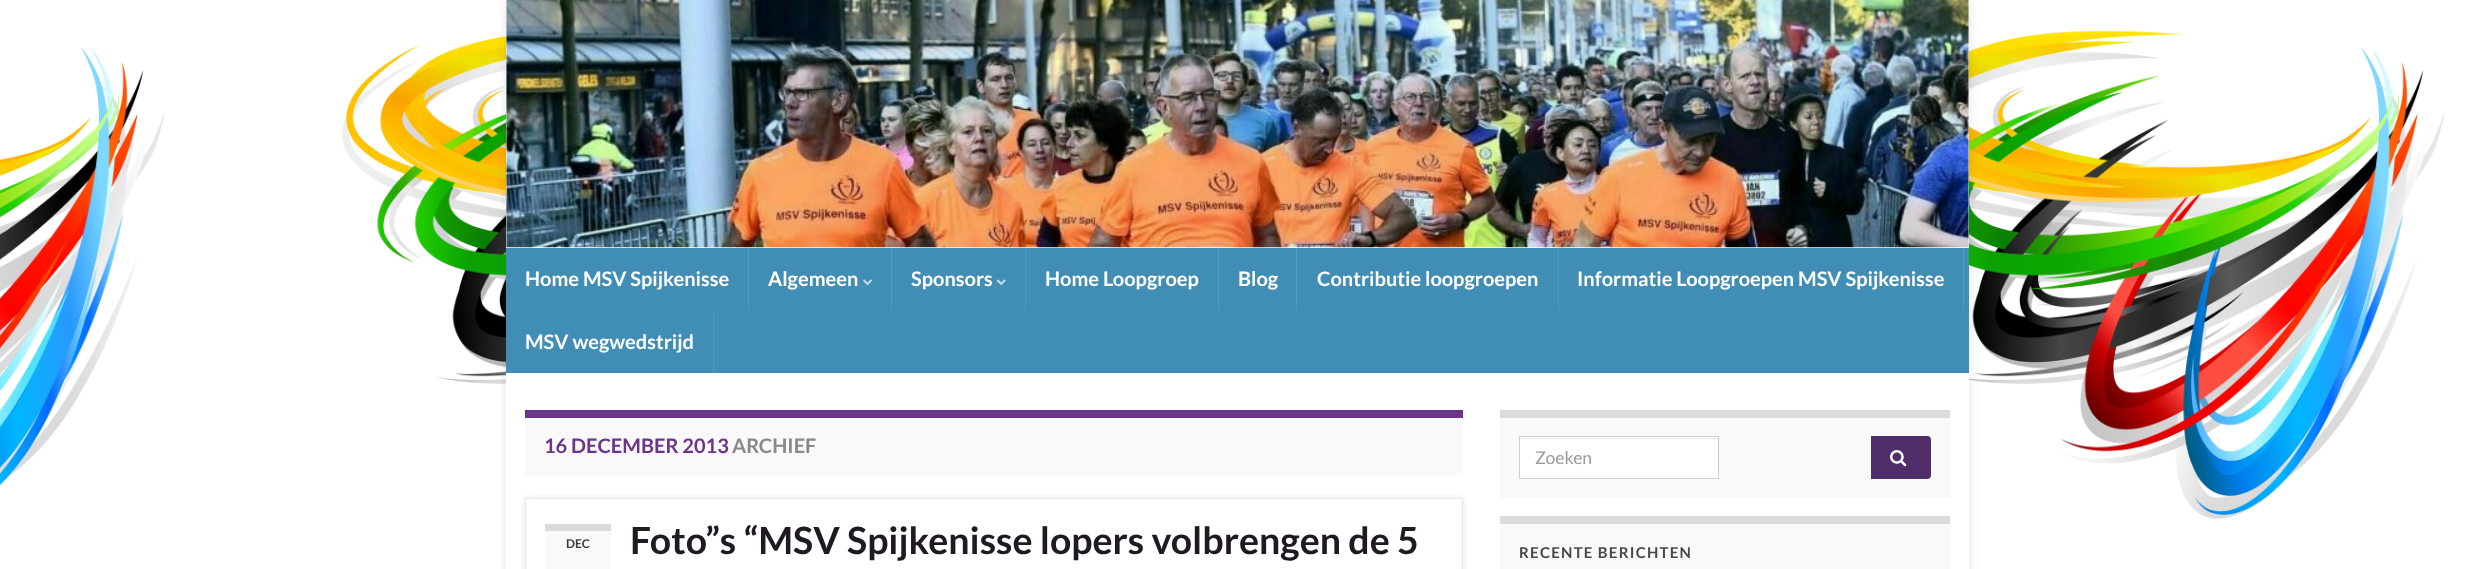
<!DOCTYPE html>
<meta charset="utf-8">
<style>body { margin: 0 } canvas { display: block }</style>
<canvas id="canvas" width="2475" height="569"></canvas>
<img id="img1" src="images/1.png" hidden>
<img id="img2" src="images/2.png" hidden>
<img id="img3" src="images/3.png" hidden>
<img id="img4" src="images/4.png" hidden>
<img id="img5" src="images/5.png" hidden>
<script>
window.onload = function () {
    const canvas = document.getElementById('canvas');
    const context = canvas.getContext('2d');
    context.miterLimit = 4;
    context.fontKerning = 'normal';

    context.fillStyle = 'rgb(255, 255, 255)';
    context.fillRect(0, 0, 2475, 569);
    context.drawImage(document.getElementById('img1'), 0, 30, 2444, 489);
    context.fillStyle = 'rgba(0, 0, 0, 0.1)';
    context.filter = 'blur(6px)';
    context.beginPath();
    context.rect(506, 0, 1463, 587);
    context.fill();
    context.filter = 'none';
    context.fillStyle = 'rgb(255, 255, 255)';
    context.fillRect(506, 0, 1463, 248);
    context.drawImage(document.getElementById('img2'), 506, 0, 1463, 248);
    context.fillStyle = 'rgb(64, 142, 181)';
    context.fillRect(506, 248, 1463, 125);
    context.fillStyle = 'rgb(83, 153, 188)';
    context.fillRect(748, 248, 1, 62);
    context.fillRect(891, 248, 1, 62);
    context.drawImage(document.getElementById('img3'), 863, 279, 9, 7);
    context.fillRect(1025, 248, 1, 62);
    context.drawImage(document.getElementById('img4'), 996, 279, 10, 7);
    context.fillRect(1218, 248, 1, 62);
    context.fillRect(1296, 248, 1, 62);
    context.fillRect(1558, 248, 1, 62);
    context.fillRect(1963, 248, 1, 62);
    context.fillRect(713, 310, 1, 63);
    context.fillStyle = 'rgb(255, 255, 255)';
    context.fillRect(506, 373, 1463, 196);
    context.fillStyle = 'rgb(249, 249, 249)';
    context.fillRect(525, 418, 938, 57);
    context.fillStyle = 'rgb(107, 53, 137)';
    context.fillRect(525, 410, 938, 8);
    context.fillStyle = 'rgba(0, 0, 0, 0.1)';
    context.filter = 'blur(3px)';
    context.beginPath();
    context.rect(525, 498, 938, 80);
    context.fill();
    context.filter = 'none';
    context.fillStyle = 'rgb(255, 255, 255)';
    context.beginPath();
    context.rect(525.5, 498.5, 937, 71);
    context.fill();
    context.strokeStyle = 'rgb(233, 232, 227)';
    context.stroke();
    context.fillStyle = 'rgb(249, 249, 249)';
    context.fillRect(545, 531, 66, 38);
    context.fillStyle = 'rgb(219, 219, 219)';
    context.fillRect(545, 524, 66, 7);
    context.fillStyle = 'rgb(249, 249, 249)';
    context.fillRect(1500, 418, 450, 80);
    context.fillStyle = 'rgb(219, 219, 219)';
    context.fillRect(1500, 410, 450, 8);
    context.fillStyle = 'rgb(255, 255, 255)';
    context.fillRect(1520, 437, 198, 41);
    context.fillStyle = 'rgb(236, 236, 236)';
    context.fillRect(1520, 438, 198, 1);
    context.strokeStyle = 'rgb(204, 204, 204)';
    context.strokeRect(1519.5, 436.5, 199, 42);
    context.fillStyle = 'rgb(79, 45, 105)';
    context.beginPath();
    context.roundRect(1871, 436, 60, 43, [0, 4, 4, 0]);
    context.fill();
    context.drawImage(document.getElementById('img5'), 1890, 450, 17, 17);
    context.fillStyle = 'rgb(249, 249, 249)';
    context.fillRect(1500, 524, 450, 45);
    context.fillStyle = 'rgb(219, 219, 219)';
    context.fillRect(1500, 516, 450, 8);
    context.font = 'bold 20px Lato';
    context.fillStyle = 'rgb(255, 255, 255)';
    context.fillText('Home MSV Spijkenisse', 525, 286);
    context.fillText('Algemeen', 768, 286);
    context.fillText('Sponsors', 911, 286);
    context.fillText('Home Loopgroep', 1045, 286);
    context.fillText('Blog', 1238, 286);
    context.fillText('Contributie loopgroepen', 1317, 286);
    context.fillText('Informatie Loopgroepen MSV Spijkenisse', 1577, 286);
    context.fillText('MSV wegwedstrijd', 525, 349);
    context.fillStyle = 'rgb(107, 53, 137)';
    context.fillText('16 DECEMBER 2013', 544, 453);
    context.fillStyle = 'rgb(136, 136, 136)';
    context.fillText('ARCHIEF', 732, 453);
    context.font = 'bold 12px Lato';
    context.fillStyle = 'rgb(59, 56, 61)';
    context.fillText('DEC', 566, 548);
    context.font = 'bold 37.5px Lato';
    context.fillStyle = 'rgb(31, 26, 34)';
    context.fillText('Foto”s “MSV Spijkenisse lopers volbrengen de 5', 630, 554);
    context.font = '17.5px Lato';
    context.fillStyle = 'rgb(153, 153, 153)';
    context.fillText('Zoeken', 1535, 464);
    context.letterSpacing = '1.25px';
    context.font = 'bold 15px Lato';
    context.fillStyle = 'rgb(74, 71, 75)';
    context.fillText('RECENTE BERICHTEN', 1519, 558);
};
</script>
